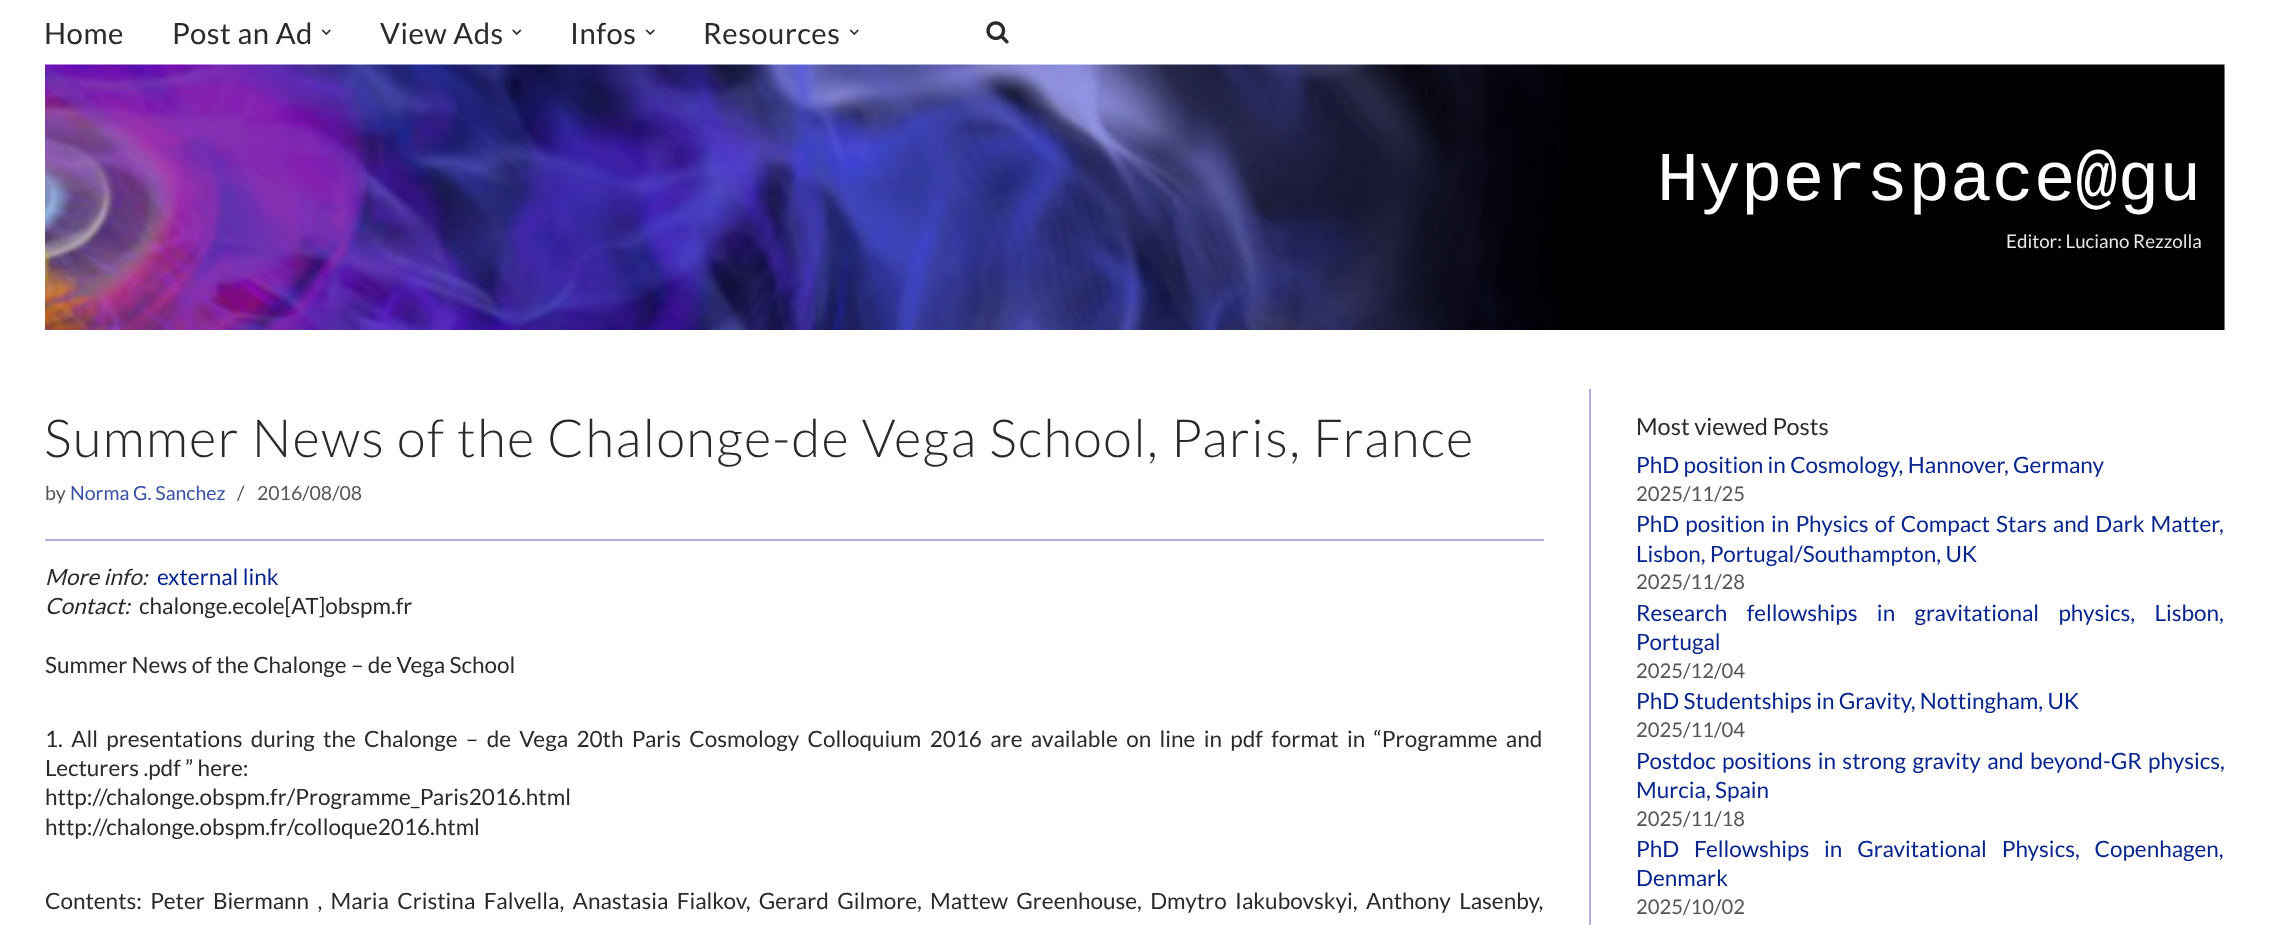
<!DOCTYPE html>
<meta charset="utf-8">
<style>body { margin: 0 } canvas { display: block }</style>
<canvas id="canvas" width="2269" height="925"></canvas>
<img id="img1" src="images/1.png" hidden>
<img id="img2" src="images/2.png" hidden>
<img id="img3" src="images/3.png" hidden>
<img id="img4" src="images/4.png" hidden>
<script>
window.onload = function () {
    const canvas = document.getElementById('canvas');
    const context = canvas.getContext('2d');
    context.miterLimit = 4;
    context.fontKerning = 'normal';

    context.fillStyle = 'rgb(255, 255, 255)';
    context.fillRect(0, 0, 2269, 925);
    context.fillStyle = 'rgb(233, 233, 235)';
    context.fillRect(2224, 65, 1, 265);
    context.drawImage(document.getElementById('img1'), 321, 29, 10, 6);
    context.drawImage(document.getElementById('img2'), 512, 29, 10, 6);
    context.drawImage(document.getElementById('img1'), 645, 29, 10, 6);
    context.drawImage(document.getElementById('img1'), 849, 29, 10, 6);
    context.drawImage(document.getElementById('img3'), 986, 21, 23, 23);
    context.drawImage(document.getElementById('img4'), 45, 64, 2180, 266);
    context.fillStyle = 'rgb(175, 175, 225)';
    context.fillRect(45, 539, 1499, 2);
    context.fillRect(1589, 389, 2, 536);
    context.letterSpacing = '0.5px';
    context.font = '29.25px Lato';
    context.fillStyle = 'rgb(42, 42, 42)';
    context.fillText('Home', 44, 44);
    context.fillText('Post an Ad', 172, 44);
    context.fillText('View Ads', 380, 44);
    context.fillText('Infos', 570, 44);
    context.fillText('Resources', 703, 44);
    context.letterSpacing = '0px';
    context.font = '69.75px Liberation Mono';
    context.fillStyle = 'rgb(255, 255, 255)';
    context.fillText('Hyperspace@gu', 1657, 200);
    context.font = '18.75px Lato';
    context.fillStyle = 'rgb(231, 231, 231)';
    context.fillText('Editor: Luciano Rezzolla', 2006, 248);
    context.letterSpacing = '1.5px';
    context.font = '300 52.5px Lato';
    context.fillStyle = 'rgb(42, 42, 42)';
    context.fillText('Summer News of the Chalonge-de Vega School, Paris, France', 44, 457);
    context.letterSpacing = '0px';
    context.font = '19.5px Lato';
    context.fillStyle = 'rgb(85, 85, 85)';
    context.fillText('by', 45, 500);
    context.fillStyle = 'rgb(57, 81, 165)';
    context.fillText('Norma G. Sanchez', 70, 500);
    context.fillStyle = 'rgb(85, 85, 85)';
    context.fillText('/', 237, 500);
    context.fillText('2016/08/08', 257, 500);
    context.font = 'italic 22.5px Lato';
    context.fillStyle = 'rgb(42, 42, 42)';
    context.fillText('More info:', 45, 585);
    context.font = '22.5px Lato';
    context.fillStyle = 'rgb(8, 37, 142)';
    context.fillText('external link', 157, 585);
    context.font = 'italic 22.5px Lato';
    context.fillStyle = 'rgb(42, 42, 42)';
    context.fillText('Contact:', 45, 614);
    context.font = '22.5px Lato';
    context.fillText('chalonge.ecole[AT]obspm.fr', 139, 614);
    context.fillText('Summer News of the Chalonge – de Vega School', 45, 673);
    context.wordSpacing = '4px';
    context.fillText('1. All presentations during the Chalonge – de Vega 20th Paris Cosmology Colloquium 2016 are available on line in pdf format in “Programme and', 45, 747);
    context.wordSpacing = '0px';
    context.fillText('Lecturers .pdf ” here:', 45, 776);
    context.fillText('http://chalonge.obspm.fr/Programme_Paris2016.html', 45, 805);
    context.fillText('http://chalonge.obspm.fr/colloque2016.html', 45, 835);
    context.wordSpacing = '4px';
    context.fillText('Contents: Peter', 45, 909);
    context.fillText('Biermann , Maria Cristina Falvella, Anastasia Fialkov, Gerard Gilmore,', 213, 909);
    context.fillText('Mattew Greenhouse, Dmytro Iakubovskyi, Anthony Lasenby,', 930, 909);
    context.wordSpacing = '0px';
    context.font = '23.5px Lato';
    context.fillText('Most viewed Posts', 1636, 435);
    context.font = '22.5px Lato';
    context.fillStyle = 'rgb(8, 37, 142)';
    context.fillText('PhD position in Cosmology, Hannover, Germany', 1636, 473);
    context.font = '20.25px Lato';
    context.fillStyle = 'rgb(85, 85, 85)';
    context.fillText('2025/11/25', 1636, 501);
    context.wordSpacing = '1.75px';
    context.font = '22.5px Lato';
    context.fillStyle = 'rgb(8, 37, 142)';
    context.fillText('PhD position in Physics of Compact Stars and Dark Matter,', 1636, 532);
    context.wordSpacing = '0px';
    context.fillText('Lisbon, Portugal/Southampton, UK', 1636, 562);
    context.font = '20.25px Lato';
    context.fillStyle = 'rgb(85, 85, 85)';
    context.fillText('2025/11/28', 1636, 589);
    context.wordSpacing = '15px';
    context.font = '22.5px Lato';
    context.fillStyle = 'rgb(8, 37, 142)';
    context.fillText('Research fellowships in gravitational physics, Lisbon,', 1636, 621);
    context.wordSpacing = '0px';
    context.fillText('Portugal', 1636, 650);
    context.font = '20.25px Lato';
    context.fillStyle = 'rgb(85, 85, 85)';
    context.fillText('2025/12/04', 1636, 678);
    context.font = '22.5px Lato';
    context.fillStyle = 'rgb(8, 37, 142)';
    context.fillText('PhD Studentships in Gravity, Nottingham, UK', 1636, 709);
    context.font = '20.25px Lato';
    context.fillStyle = 'rgb(85, 85, 85)';
    context.fillText('2025/11/04', 1636, 737);
    context.wordSpacing = '2px';
    context.font = '22.5px Lato';
    context.fillStyle = 'rgb(8, 37, 142)';
    context.fillText('Postdoc positions in strong gravity and beyond-GR physics,', 1636, 769);
    context.wordSpacing = '0px';
    context.fillText('Murcia, Spain', 1636, 798);
    context.font = '20.25px Lato';
    context.fillStyle = 'rgb(85, 85, 85)';
    context.fillText('2025/11/18', 1636, 826);
    context.wordSpacing = '10.5px';
    context.font = '22.5px Lato';
    context.fillStyle = 'rgb(8, 37, 142)';
    context.fillText('PhD Fellowships in Gravitational Physics, Copenhagen,', 1636, 857);
    context.wordSpacing = '0px';
    context.fillText('Denmark', 1636, 886);
    context.font = '20.25px Lato';
    context.fillStyle = 'rgb(85, 85, 85)';
    context.fillText('2025/10/02', 1636, 914);
};
</script>
